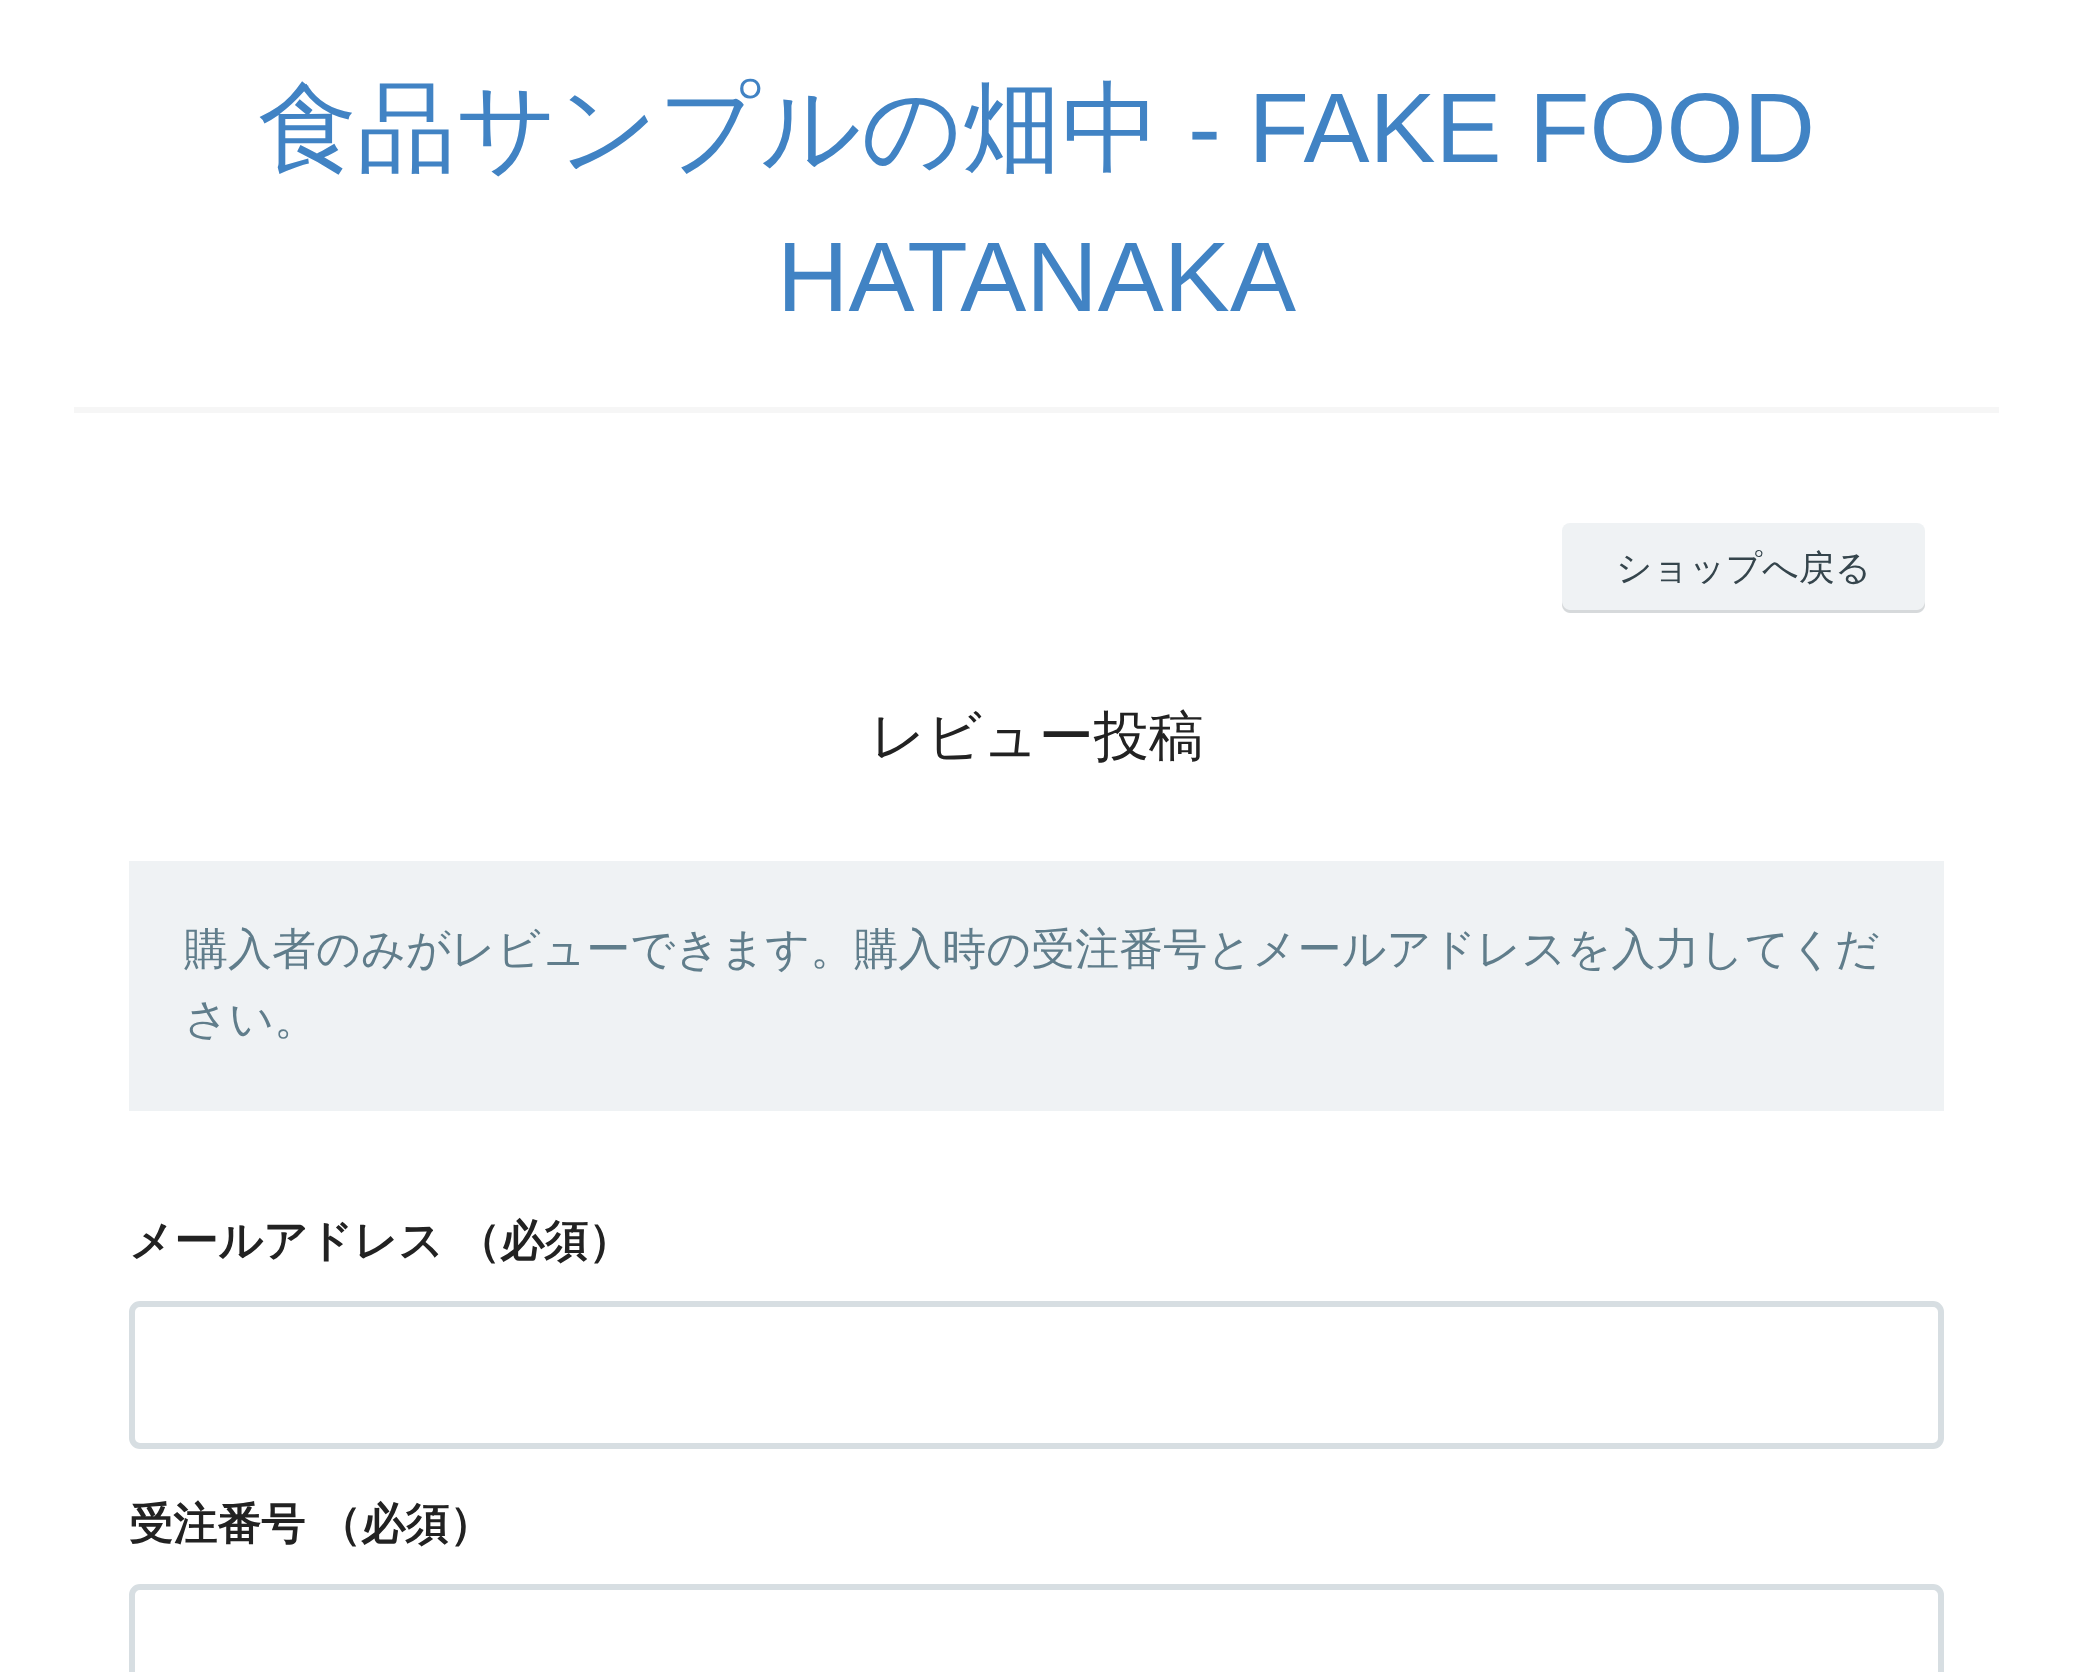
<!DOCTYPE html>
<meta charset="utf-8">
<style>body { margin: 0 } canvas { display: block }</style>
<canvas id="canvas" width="2073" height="1672"></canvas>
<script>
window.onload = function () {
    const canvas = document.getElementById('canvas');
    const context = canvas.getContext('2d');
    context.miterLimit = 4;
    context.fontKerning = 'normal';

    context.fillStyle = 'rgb(255, 255, 255)';
    context.fillRect(0, 0, 2073, 1672);
    context.fillStyle = 'rgb(246, 246, 246)';
    context.fillRect(74, 407, 1925, 6);
    context.fillStyle = 'rgb(239, 242, 244)';
    context.beginPath();
    context.roundRect(1562, 523, 363, 90, 8);
    context.fill();
    context.fillStyle = 'rgba(0, 0, 0, 0.1)';
    context.beginPath();
    context.moveTo(1562, 601);
    context.lineTo(1562, 605);
    context.bezierCurveTo(1562, 609, 1566, 613, 1570, 613);
    context.lineTo(1917, 613);
    context.bezierCurveTo(1921, 613, 1925, 609, 1925, 605);
    context.lineTo(1925, 601);
    context.bezierCurveTo(1925, 606, 1921, 610, 1917, 610);
    context.lineTo(1570, 610);
    context.bezierCurveTo(1566, 610, 1562, 606, 1562, 601);
    context.closePath();
    context.fill();
    context.fillStyle = 'rgb(239, 242, 244)';
    context.fillRect(129, 861, 1815, 250);
    context.beginPath();
    context.roundRect(132, 1304, 1809, 142, 8);
    context.strokeStyle = 'rgb(215, 222, 226)';
    context.lineWidth = 6;
    context.stroke();
    context.beginPath();
    context.roundRect(132, 1587, 1809, 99, 8);
    context.stroke();
    context.font = '500 99px WenQuanYi Zen Hei';
    context.fillStyle = 'rgb(65, 131, 196)';
    context.fillText('食品サンプルの畑中', 258, 162);
    context.font = '99px Liberation Sans';
    context.fillText('- FAKE FOOD', 1188, 162);
    context.fillText('HATANAKA', 777, 311);
    context.font = '500 35.75px WenQuanYi Zen Hei';
    context.fillStyle = 'rgb(53, 69, 76)';
    context.fillText('ショップへ戻る', 1616, 580);
    context.font = '500 55px WenQuanYi Zen Hei';
    context.fillStyle = 'rgb(34, 34, 34)';
    context.fillText('レビュー投稿', 870, 755);
    context.font = '500 44px WenQuanYi Zen Hei';
    context.fillStyle = 'rgb(96, 125, 139)';
    context.fillText('購入者のみがレビューできます。購入時の受注番号とメールアドレスを入力してくだ', 184, 964);
    context.fillText('さい。', 184, 1034);
    context.font = 'bold 44px WenQuanYi Zen Hei';
    context.fillStyle = 'rgb(34, 34, 34)';
    context.fillText('メールアドレス', 129, 1256);
    context.fillText('（必須）', 456, 1256);
    context.fillText('受注番号', 129, 1539);
    context.fillText('（必須）', 317, 1539);
};
</script>
